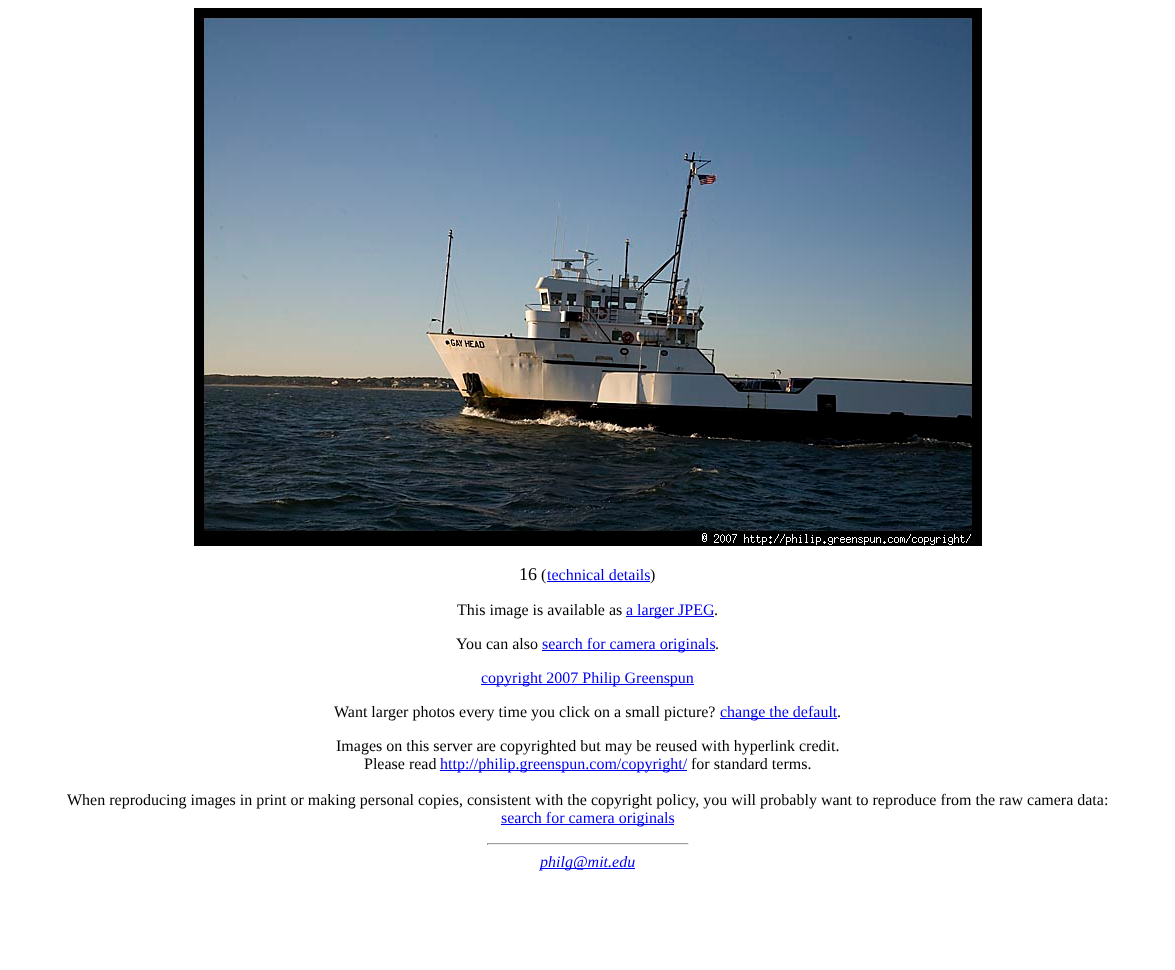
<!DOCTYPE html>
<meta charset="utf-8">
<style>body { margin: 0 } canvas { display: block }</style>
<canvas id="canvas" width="1175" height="970"></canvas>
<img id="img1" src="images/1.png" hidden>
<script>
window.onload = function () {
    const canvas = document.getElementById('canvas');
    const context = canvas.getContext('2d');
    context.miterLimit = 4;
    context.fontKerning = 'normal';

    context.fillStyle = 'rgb(255, 255, 255)';
    context.fillRect(0, 0, 1175, 970);
    context.drawImage(document.getElementById('img1'), 194, 8, 788, 538);
    context.fillStyle = 'rgb(0, 0, 238)';
    context.fillRect(547, 581, 103, 1);
    context.fillRect(626, 616, 88, 1);
    context.fillRect(542, 650, 173, 1);
    context.fillRect(481, 684, 213, 1);
    context.fillRect(720, 718, 117, 1);
    context.fillRect(440, 770, 247, 1);
    context.fillRect(501, 824, 173, 1);
    context.fillStyle = 'rgb(159, 159, 159)';
    context.fillRect(487, 843, 202, 1);
    context.fillStyle = 'rgb(238, 238, 238)';
    context.fillRect(688, 843, 1, 2);
    context.fillRect(487, 844, 202, 1);
    context.fillStyle = 'rgb(159, 159, 159)';
    context.fillRect(487, 843, 1, 2);
    context.fillStyle = 'rgb(0, 0, 238)';
    context.fillRect(540, 868, 95, 1);
    context.font = '18px Liberation Serif';
    context.fillStyle = 'rgb(0, 0, 0)';
    context.fillText('16', 519, 580);
    context.font = '16px Liberation Serif';
    context.fillText('(', 541, 580);
    context.fillStyle = 'rgb(0, 0, 238)';
    context.fillText('technical details', 547, 580);
    context.fillStyle = 'rgb(0, 0, 0)';
    context.fillText(')', 650, 580);
    context.fillText('This image is available as', 457, 615);
    context.fillStyle = 'rgb(0, 0, 238)';
    context.fillText('a larger JPEG', 626, 615);
    context.fillStyle = 'rgb(0, 0, 0)';
    context.fillText('.', 714, 615);
    context.fillText('You can also', 456, 649);
    context.fillStyle = 'rgb(0, 0, 238)';
    context.fillText('search for camera originals', 542, 649);
    context.fillStyle = 'rgb(0, 0, 0)';
    context.fillText('.', 715, 649);
    context.fillStyle = 'rgb(0, 0, 238)';
    context.fillText('copyright 2007 Philip Greenspun', 481, 683);
    context.fillStyle = 'rgb(0, 0, 0)';
    context.fillText('Want larger photos every time you click on a small picture?', 334, 717);
    context.fillStyle = 'rgb(0, 0, 238)';
    context.fillText('change the default', 720, 717);
    context.fillStyle = 'rgb(0, 0, 0)';
    context.fillText('.', 837, 717);
    context.fillText('Images on this server are copyrighted but may be reused with hyperlink credit.', 336, 751);
    context.fillText('Please read', 364, 769);
    context.fillStyle = 'rgb(0, 0, 238)';
    context.fillText('http://philip.greenspun.com/copyright/', 440, 769);
    context.fillStyle = 'rgb(0, 0, 0)';
    context.fillText('for standard terms.', 691, 769);
    context.fillText('When reproducing images in print or making personal copies, consistent with the copyright policy, you will probably want to reproduce from the raw camera data:', 67, 805);
    context.fillStyle = 'rgb(0, 0, 238)';
    context.fillText('search for camera originals', 501, 823);
    context.font = 'italic 16px Liberation Serif';
    context.fillText('philg@mit.edu', 540, 867);
};
</script>
